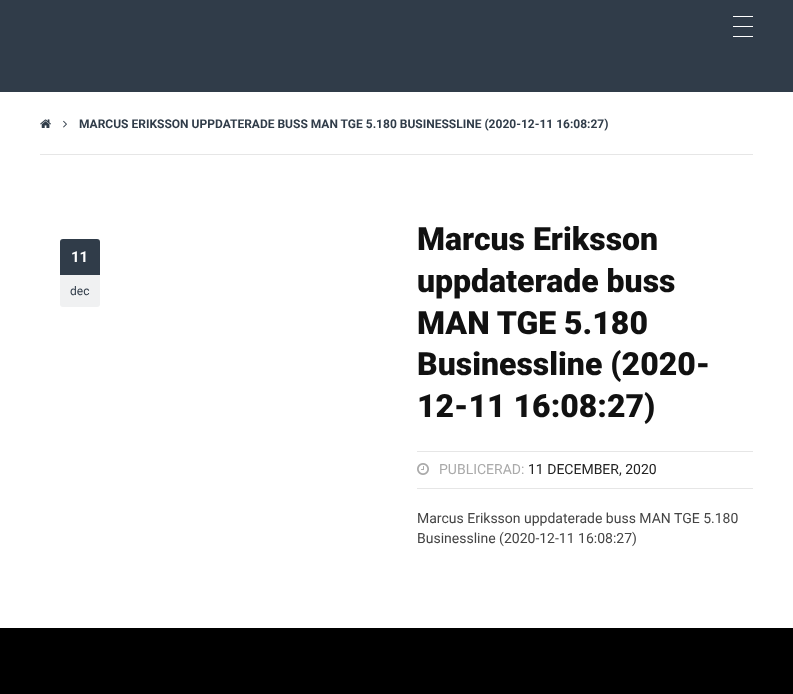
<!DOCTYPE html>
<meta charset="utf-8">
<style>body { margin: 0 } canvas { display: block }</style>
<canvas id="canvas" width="793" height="694"></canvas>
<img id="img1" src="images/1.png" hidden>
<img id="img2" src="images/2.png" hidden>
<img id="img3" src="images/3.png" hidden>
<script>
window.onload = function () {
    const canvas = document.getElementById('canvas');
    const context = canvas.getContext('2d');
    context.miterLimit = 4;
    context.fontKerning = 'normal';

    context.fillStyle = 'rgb(255, 255, 255)';
    context.fillRect(0, 0, 793, 694);
    context.fillStyle = 'rgb(48, 60, 73)';
    context.fillRect(0, 0, 793, 92);
    context.fillStyle = 'rgb(255, 255, 255)';
    context.fillRect(733, 26, 20, 1);
    context.fillRect(733, 16, 20, 1);
    context.fillRect(733, 36, 20, 1);
    context.fillStyle = 'rgb(230, 230, 230)';
    context.fillRect(40, 154, 713, 1);
    context.drawImage(document.getElementById('img1'), 40, 119, 11, 9);
    context.drawImage(document.getElementById('img2'), 63, 120, 4, 8);
    context.fillStyle = 'rgb(48, 60, 73)';
    context.beginPath();
    context.roundRect(60, 239, 40, 36, [3, 3, 0, 0]);
    context.fill();
    context.fillStyle = 'rgb(240, 241, 242)';
    context.beginPath();
    context.roundRect(60, 275, 40, 32, [0, 0, 3, 3]);
    context.fill();
    context.fillStyle = 'rgb(230, 230, 230)';
    context.fillRect(417, 451, 336, 1);
    context.fillRect(417, 488, 336, 1);
    context.drawImage(document.getElementById('img3'), 417, 463, 12, 12);
    context.fillStyle = 'rgb(0, 0, 0)';
    context.fillRect(0, 628, 793, 66);
    context.font = 'bold 12px Roboto';
    context.fillStyle = 'rgb(48, 60, 73)';
    context.fillText('MARCUS ERIKSSON UPPDATERADE BUSS MAN TGE 5.180 BUSINESSLINE (2020-12-11 16:08:27)', 79, 128);
    context.font = 'bold 15px Roboto';
    context.fillStyle = 'rgb(255, 255, 255)';
    context.fillText('11', 71, 262);
    context.font = '12px Roboto';
    context.fillStyle = 'rgb(48, 60, 73)';
    context.fillText('dec', 70, 295);
    context.font = '900 32px Roboto';
    context.fillStyle = 'rgb(17, 17, 17)';
    context.fillText('Marcus Eriksson', 417, 250);
    context.fillText('uppdaterade buss', 417, 292);
    context.fillText('MAN TGE 5.180', 417, 334);
    context.fillText('Businessline (2020-', 417, 375);
    context.fillText('12-11 16:08:27)', 417, 417);
    context.font = '14px Roboto';
    context.fillStyle = 'rgb(170, 170, 170)';
    context.fillText('PUBLICERAD:', 439, 474);
    context.fillStyle = 'rgb(34, 34, 34)';
    context.fillText('11 DECEMBER, 2020', 528, 474);
    context.fillStyle = 'rgb(68, 68, 68)';
    context.fillText('Marcus Eriksson uppdaterade buss MAN TGE 5.180', 417, 523);
    context.fillText('Businessline (2020-12-11 16:08:27)', 417, 543);
};
</script>
